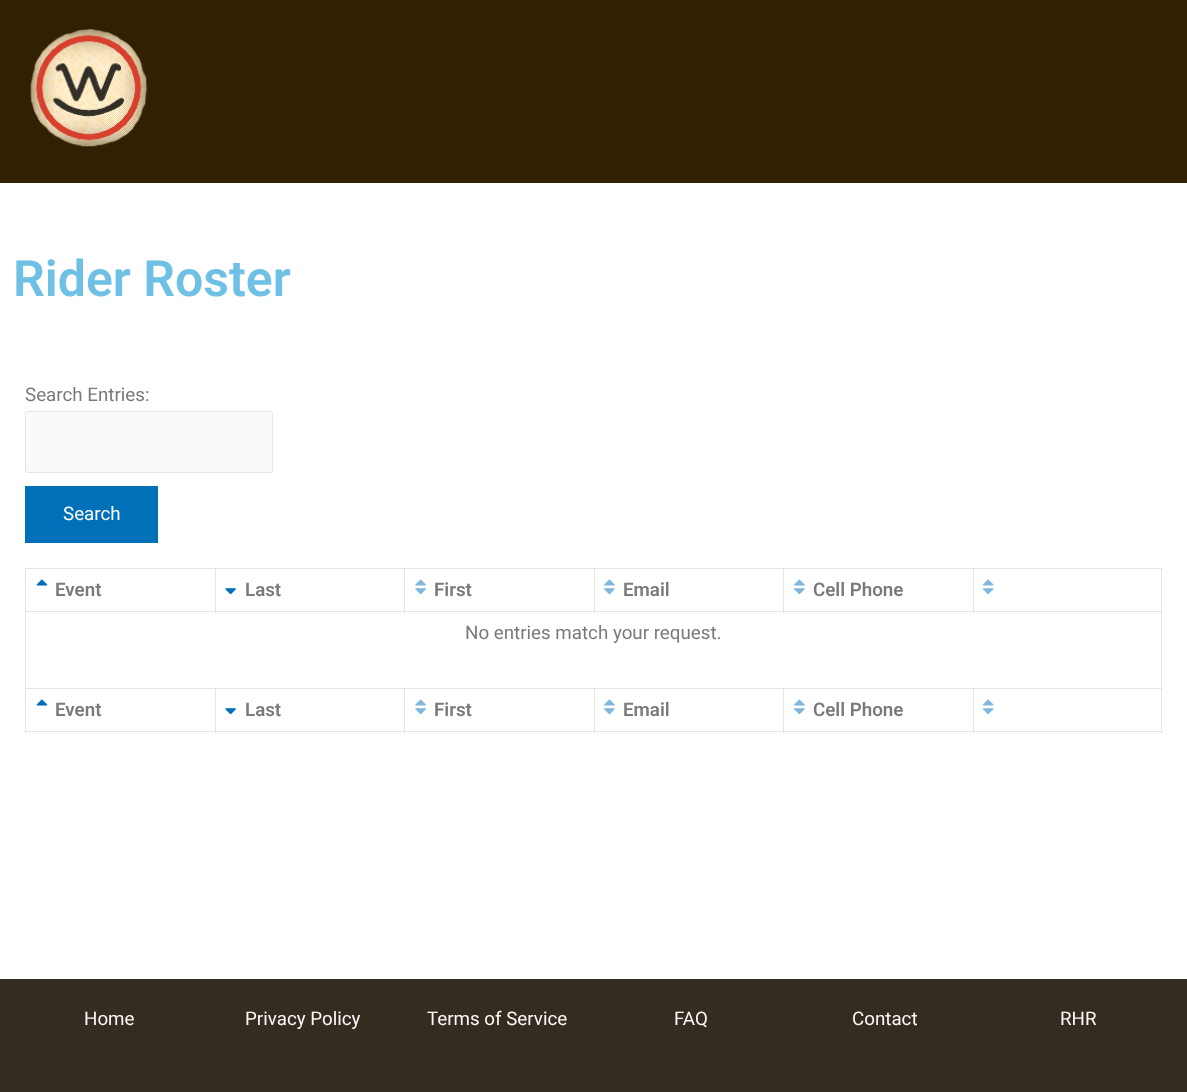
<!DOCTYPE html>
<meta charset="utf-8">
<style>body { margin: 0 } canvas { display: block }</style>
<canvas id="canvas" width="1187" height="1092"></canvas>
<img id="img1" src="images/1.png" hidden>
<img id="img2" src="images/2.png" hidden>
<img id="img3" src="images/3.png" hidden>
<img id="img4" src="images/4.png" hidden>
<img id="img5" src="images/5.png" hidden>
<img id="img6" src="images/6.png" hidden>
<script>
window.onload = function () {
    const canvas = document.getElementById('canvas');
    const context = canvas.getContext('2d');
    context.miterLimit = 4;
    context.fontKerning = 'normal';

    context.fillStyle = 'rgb(255, 255, 255)';
    context.fillRect(0, 0, 1187, 1092);
    context.fillStyle = 'rgb(49, 32, 1)';
    context.fillRect(0, 0, 1187, 183);
    context.drawImage(document.getElementById('img1'), 30, 29, 118, 118);
    context.fillStyle = 'rgb(250, 250, 250)';
    context.beginPath();
    context.roundRect(25.5, 411.5, 247, 61, 2);
    context.fill();
    context.strokeStyle = 'rgb(229, 229, 229)';
    context.stroke();
    context.fillStyle = 'rgb(1, 112, 185)';
    context.fillRect(25, 486, 133, 57);
    context.fillStyle = 'rgb(229, 229, 229)';
    context.fillRect(25, 568, 1138, 1);
    context.fillRect(25, 568, 1, 165);
    context.fillRect(215, 569, 1, 44);
    context.fillRect(26, 611, 190, 1);
    context.drawImage(document.getElementById('img2'), 36, 579, 12, 7);
    context.fillRect(404, 569, 1, 44);
    context.fillRect(216, 611, 189, 1);
    context.drawImage(document.getElementById('img3'), 225, 588, 11, 7);
    context.fillRect(594, 569, 1, 44);
    context.fillRect(405, 611, 190, 1);
    context.drawImage(document.getElementById('img4'), 415, 579, 11, 16);
    context.fillRect(783, 569, 1, 44);
    context.fillRect(595, 611, 189, 1);
    context.drawImage(document.getElementById('img5'), 604, 579, 11, 16);
    context.fillRect(973, 569, 1, 44);
    context.fillRect(784, 611, 190, 1);
    context.drawImage(document.getElementById('img5'), 794, 579, 11, 16);
    context.fillRect(1161, 569, 1, 164);
    context.fillRect(974, 611, 189, 1);
    context.drawImage(document.getElementById('img6'), 982, 579, 12, 16);
    context.fillRect(26, 688, 1137, 1);
    context.fillRect(215, 689, 1, 44);
    context.fillRect(26, 731, 190, 1);
    context.drawImage(document.getElementById('img2'), 36, 699, 12, 7);
    context.fillRect(404, 689, 1, 44);
    context.fillRect(216, 731, 189, 1);
    context.drawImage(document.getElementById('img3'), 225, 708, 11, 7);
    context.fillRect(594, 689, 1, 44);
    context.fillRect(405, 731, 190, 1);
    context.drawImage(document.getElementById('img4'), 415, 699, 11, 16);
    context.fillRect(783, 689, 1, 44);
    context.fillRect(595, 731, 189, 1);
    context.drawImage(document.getElementById('img5'), 604, 699, 11, 16);
    context.fillRect(973, 689, 1, 44);
    context.fillRect(784, 731, 379, 1);
    context.drawImage(document.getElementById('img5'), 794, 699, 11, 16);
    context.drawImage(document.getElementById('img6'), 982, 699, 12, 16);
    context.fillStyle = 'rgb(53, 44, 33)';
    context.fillRect(0, 979, 1187, 113);
    context.font = '600 50px Roboto';
    context.fillStyle = 'rgb(110, 193, 228)';
    context.fillText('Rider Roster', 13, 296);
    context.font = '18.75px Roboto';
    context.fillStyle = 'rgb(122, 122, 122)';
    context.fillText('Search Entries:', 25, 401);
    context.fillStyle = 'rgb(255, 255, 255)';
    context.fillText('Search', 63, 520);
    context.font = '600 18.75px Roboto';
    context.fillStyle = 'rgb(122, 122, 122)';
    context.fillText('Event', 55, 596);
    context.fillText('Last', 245, 596);
    context.fillText('First', 434, 596);
    context.fillText('Email', 623, 596);
    context.fillText('Cell Phone', 813, 596);
    context.font = '18.75px Roboto';
    context.fillText('No entries match your request.', 465, 639);
    context.font = '600 18.75px Roboto';
    context.fillText('Event', 55, 716);
    context.fillText('Last', 245, 716);
    context.fillText('First', 434, 716);
    context.fillText('Email', 623, 716);
    context.fillText('Cell Phone', 813, 716);
    context.font = '18.75px Roboto';
    context.fillStyle = 'rgb(251, 249, 246)';
    context.fillText('Home', 84, 1025);
    context.fillText('Privacy Policy', 245, 1025);
    context.fillText('Terms of Service', 427, 1025);
    context.fillText('FAQ', 674, 1025);
    context.fillText('Contact', 852, 1025);
    context.fillText('RHR', 1060, 1025);
};
</script>
